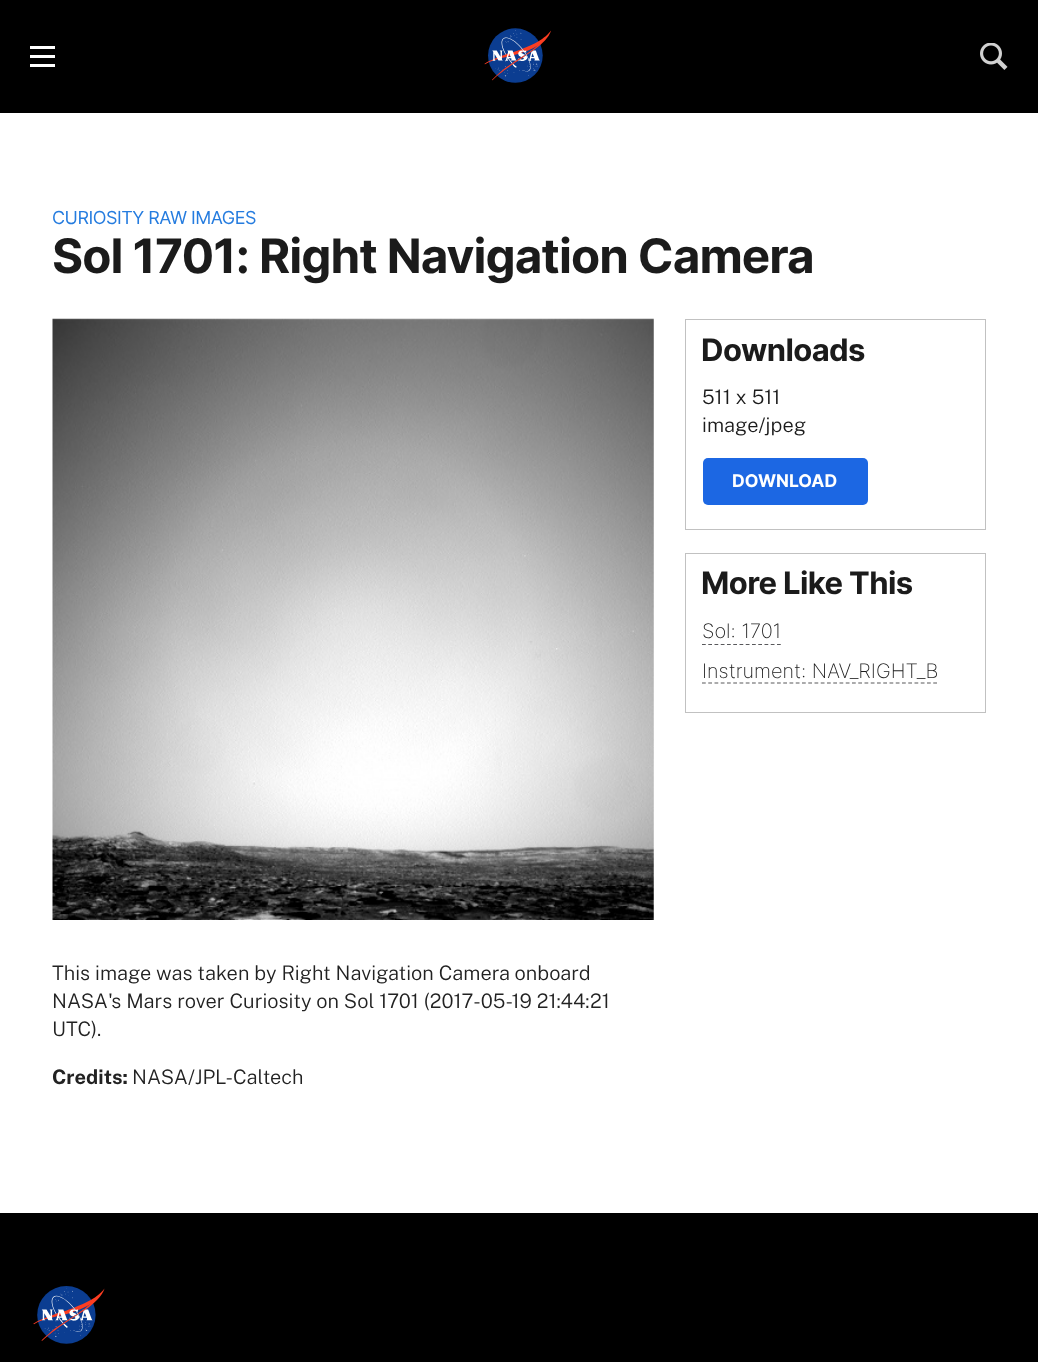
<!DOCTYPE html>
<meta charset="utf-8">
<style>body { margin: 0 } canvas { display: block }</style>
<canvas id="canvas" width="1056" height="1362"></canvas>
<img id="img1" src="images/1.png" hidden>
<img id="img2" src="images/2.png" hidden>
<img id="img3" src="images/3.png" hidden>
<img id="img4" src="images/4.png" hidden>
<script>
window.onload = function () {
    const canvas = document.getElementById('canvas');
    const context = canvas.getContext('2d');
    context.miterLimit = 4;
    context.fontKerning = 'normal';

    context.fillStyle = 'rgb(255, 255, 255)';
    context.fillRect(0, 0, 1056, 1362);
    context.fillStyle = 'rgb(0, 0, 0)';
    context.fillRect(0, 0, 1038, 113);
    context.fillStyle = 'rgb(255, 255, 255)';
    context.fillRect(30, 46, 25, 3);
    context.fillRect(30, 55, 25, 3);
    context.fillRect(30, 64, 25, 3);
    context.drawImage(document.getElementById('img1'), 484, 28, 67, 55);
    context.drawImage(document.getElementById('img2'), 980, 43, 28, 27);
    context.strokeStyle = 'rgb(193, 193, 193)';
    context.strokeRect(685.5, 319.5, 300, 210);
    context.fillStyle = 'rgb(28, 103, 227)';
    context.beginPath();
    context.roundRect(703, 458, 165, 47, 5);
    context.fill();
    context.strokeRect(685.5, 553.5, 300, 159);
    context.beginPath();
    context.moveTo(702, 644.5);
    context.lineTo(781.5, 644.5);
    context.strokeStyle = 'rgb(88, 88, 91)';
    context.lineWidth = 1.2;
    context.setLineDash([3.75, 2.5]);
    context.stroke();
    context.beginPath();
    context.moveTo(702, 683);
    context.lineTo(938.5, 683);
    context.stroke();
    context.drawImage(document.getElementById('img3'), 52, 318, 602, 602);
    context.fillStyle = 'rgb(0, 0, 0)';
    context.fillRect(0, 1213, 1038, 149);
    context.drawImage(document.getElementById('img4'), 33, 1286, 72, 58);
    context.letterSpacing = '-0.5px';
    context.font = '18px Inter';
    context.fillStyle = 'rgb(37, 124, 223)';
    context.fillText('CURIOSITY RAW IMAGES', 52, 224);
    context.letterSpacing = '-0.95px';
    context.font = 'bold 47.6px Inter';
    context.fillStyle = 'rgb(27, 27, 27)';
    context.fillText('Sol 1701: Right Navigation Camera', 52, 273);
    context.letterSpacing = '-0.6px';
    context.font = 'bold 31px Inter';
    context.fillText('Downloads', 701, 361);
    context.letterSpacing = '0px';
    context.font = '300 20px Public Sans';
    context.fillText('511 x 511', 702, 404);
    context.fillText('image/jpeg', 702, 432);
    context.font = 'bold 17.5px Inter';
    context.fillStyle = 'rgb(255, 255, 255)';
    context.fillText('DOWNLOAD', 732, 487);
    context.letterSpacing = '-0.6px';
    context.font = 'bold 31px Inter';
    context.fillStyle = 'rgb(27, 27, 27)';
    context.fillText('More Like This', 701, 594);
    context.letterSpacing = '0px';
    context.font = '200 20px Inter';
    context.fillText('Sol: 1701', 702, 638);
    context.fillText('Instrument: NAV_RIGHT_B', 702, 678);
    context.font = '300 20px Public Sans';
    context.fillStyle = 'rgb(34, 34, 34)';
    context.fillText('This image was taken by Right Navigation Camera onboard', 52, 980);
    context.fillText('NASA\'s Mars rover Curiosity on Sol 1701 (2017-05-19 21:44:21', 52, 1008);
    context.fillText('UTC).', 52, 1036);
    context.font = 'bold 20px Public Sans';
    context.fillText('Credits:', 52, 1084);
    context.font = '300 20px Public Sans';
    context.fillText('NASA/JPL-Caltech', 132, 1084);
};
</script>
